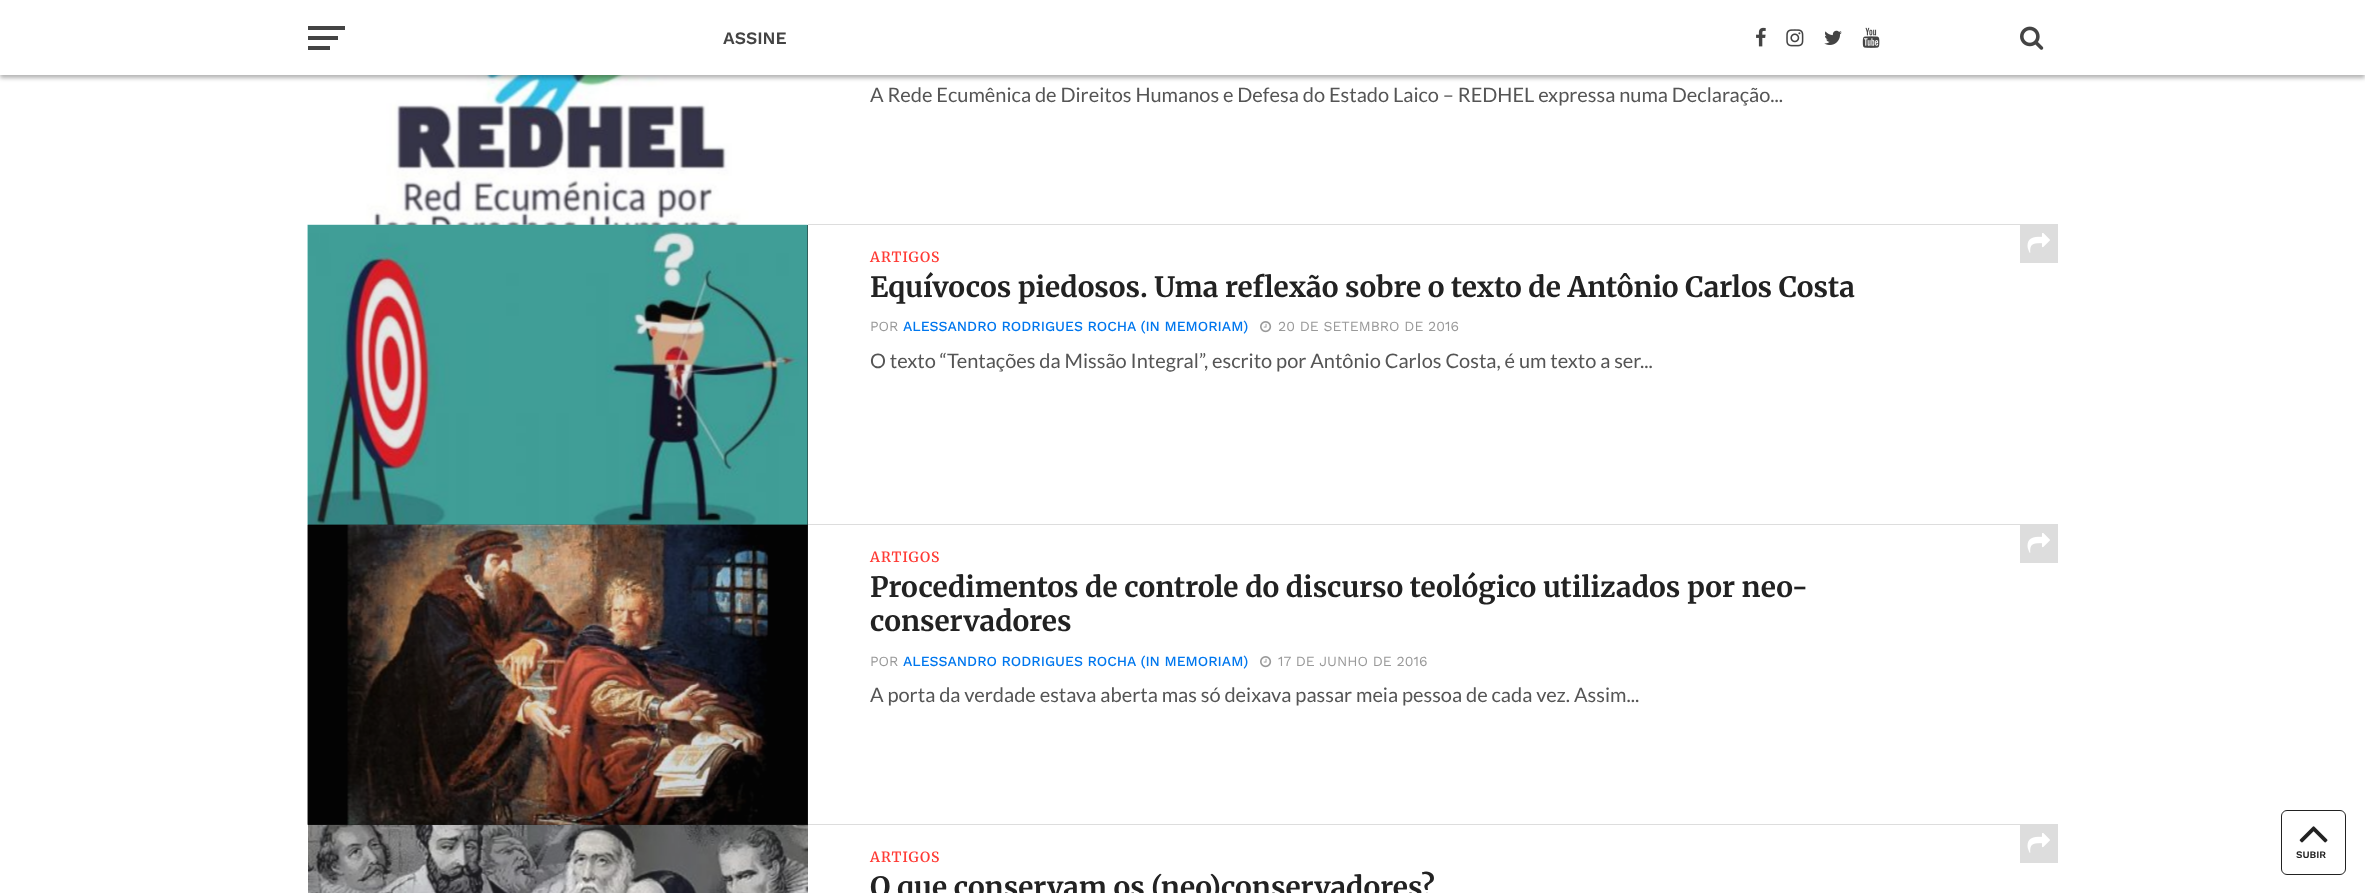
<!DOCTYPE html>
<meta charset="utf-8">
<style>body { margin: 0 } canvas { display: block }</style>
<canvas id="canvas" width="2365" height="893"></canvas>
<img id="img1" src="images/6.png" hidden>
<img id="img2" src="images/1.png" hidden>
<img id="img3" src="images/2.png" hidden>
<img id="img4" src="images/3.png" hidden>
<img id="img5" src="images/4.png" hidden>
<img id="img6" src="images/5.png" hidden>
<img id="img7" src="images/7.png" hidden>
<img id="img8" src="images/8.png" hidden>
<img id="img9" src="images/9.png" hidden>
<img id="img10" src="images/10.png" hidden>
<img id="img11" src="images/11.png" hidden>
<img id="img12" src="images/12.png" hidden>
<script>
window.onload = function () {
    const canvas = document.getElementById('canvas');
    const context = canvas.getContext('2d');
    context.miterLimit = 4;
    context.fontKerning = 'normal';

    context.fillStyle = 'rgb(255, 255, 255)';
    context.fillRect(0, 0, 2365, 893);
    context.drawImage(document.getElementById('img1'), 308, 75, 500, 150);
    context.fillStyle = 'rgba(0, 0, 0, 0.3)';
    context.filter = 'blur(2px)';
    context.beginPath();
    context.rect(0, 3, 2365, 75);
    context.fill();
    context.filter = 'none';
    context.fillStyle = 'rgb(255, 255, 255)';
    context.fillRect(0, 0, 2365, 75);
    context.fillStyle = 'rgb(68, 68, 68)';
    context.fillRect(308, 26, 37, 4);
    context.fillRect(308, 36, 30, 4);
    context.fillRect(308, 46, 22, 4);
    context.drawImage(document.getElementById('img2'), 1756, 27, 10, 20);
    context.drawImage(document.getElementById('img3'), 1786, 29, 18, 18);
    context.drawImage(document.getElementById('img4'), 1824, 30, 18, 15);
    context.drawImage(document.getElementById('img5'), 1862, 27, 18, 21);
    context.drawImage(document.getElementById('img6'), 2020, 26, 24, 24);
    context.fillStyle = 'rgb(221, 221, 221)';
    context.fillRect(808, 224, 1250, 1);
    context.fillStyle = 'rgb(34, 34, 34)';
    context.fillRect(308, 225, 500, 600);
    context.drawImage(document.getElementById('img7'), 307, 224, 501, 301);
    context.fillStyle = 'rgb(221, 221, 221)';
    context.fillRect(808, 524, 1250, 1);
    context.fillRect(2020, 225, 38, 38);
    context.drawImage(document.getElementById('img8'), 2027, 233, 23, 20);
    context.drawImage(document.getElementById('img9'), 1260, 321, 12, 12);
    context.drawImage(document.getElementById('img10'), 307, 524, 501, 301);
    context.fillRect(808, 824, 1250, 1);
    context.fillRect(2020, 525, 38, 38);
    context.drawImage(document.getElementById('img8'), 2027, 533, 23, 20);
    context.drawImage(document.getElementById('img9'), 1260, 656, 12, 12);
    context.drawImage(document.getElementById('img11'), 308, 825, 500, 68);
    context.fillRect(2020, 825, 38, 38);
    context.drawImage(document.getElementById('img8'), 2027, 833, 23, 20);
    context.beginPath();
    context.roundRect(2281.5, 810.5, 64, 64, 5.5);
    context.strokeStyle = 'rgb(34, 34, 34)';
    context.stroke();
    context.drawImage(document.getElementById('img12'), 2299, 826, 29, 17);
    context.font = '600 17.5px Work Sans';
    context.fillStyle = 'rgb(68, 68, 68)';
    context.fillText('ASSINE', 723, 44);
    context.font = '20px Lato';
    context.fillStyle = 'rgb(85, 85, 85)';
    context.fillText('A Rede Ecumênica de Direitos Humanos e Defesa do Estado Laico – REDHEL expressa numa Declaração...', 870, 102);
    context.letterSpacing = '1px';
    context.font = '600 14px Merriweather';
    context.fillStyle = 'rgb(255, 60, 54)';
    context.fillText('ARTIGOS', 870, 262);
    context.letterSpacing = '0px';
    context.font = 'bold 28px Merriweather';
    context.fillStyle = 'rgb(34, 34, 34)';
    context.fillText('Equívocos piedosos. Uma reflexão sobre o texto de Antônio Carlos Costa', 870, 297);
    context.font = '14px Work Sans';
    context.fillStyle = 'rgb(153, 153, 153)';
    context.fillText('POR', 870, 331);
    context.font = '500 14px Work Sans';
    context.fillStyle = 'rgb(0, 119, 238)';
    context.fillText('ALESSANDRO RODRIGUES ROCHA (IN MEMORIAM)', 903, 331);
    context.font = '14px Work Sans';
    context.fillStyle = 'rgb(153, 153, 153)';
    context.fillText('20 DE SETEMBRO DE 2016', 1278, 331);
    context.font = '20px Lato';
    context.fillStyle = 'rgb(85, 85, 85)';
    context.fillText('O texto “Tentações da Missão Integral”, escrito por Antônio Carlos Costa, é um texto a ser...', 870, 368);
    context.letterSpacing = '1px';
    context.font = '600 14px Merriweather';
    context.fillStyle = 'rgb(255, 60, 54)';
    context.fillText('ARTIGOS', 870, 562);
    context.letterSpacing = '0px';
    context.font = 'bold 28px Merriweather';
    context.fillStyle = 'rgb(34, 34, 34)';
    context.fillText('Procedimentos de controle do discurso teológico utilizados por neo-', 870, 597);
    context.fillText('conservadores', 870, 631);
    context.font = '14px Work Sans';
    context.fillStyle = 'rgb(153, 153, 153)';
    context.fillText('POR', 870, 666);
    context.font = '500 14px Work Sans';
    context.fillStyle = 'rgb(0, 119, 238)';
    context.fillText('ALESSANDRO RODRIGUES ROCHA (IN MEMORIAM)', 903, 666);
    context.font = '14px Work Sans';
    context.fillStyle = 'rgb(153, 153, 153)';
    context.fillText('17 DE JUNHO DE 2016', 1278, 666);
    context.font = '20px Lato';
    context.fillStyle = 'rgb(85, 85, 85)';
    context.fillText('A porta da verdade estava aberta mas só deixava passar meia pessoa de cada vez. Assim...', 870, 702);
    context.letterSpacing = '1px';
    context.font = '600 14px Merriweather';
    context.fillStyle = 'rgb(255, 60, 54)';
    context.fillText('ARTIGOS', 870, 862);
    context.letterSpacing = '0px';
    context.font = 'bold 28px Merriweather';
    context.fillStyle = 'rgb(34, 34, 34)';
    context.fillText('O que conservam os (neo)conservadores?', 870, 897);
    context.font = '600 10px Work Sans';
    context.fillText('SUBIR', 2296, 858);
};
</script>
